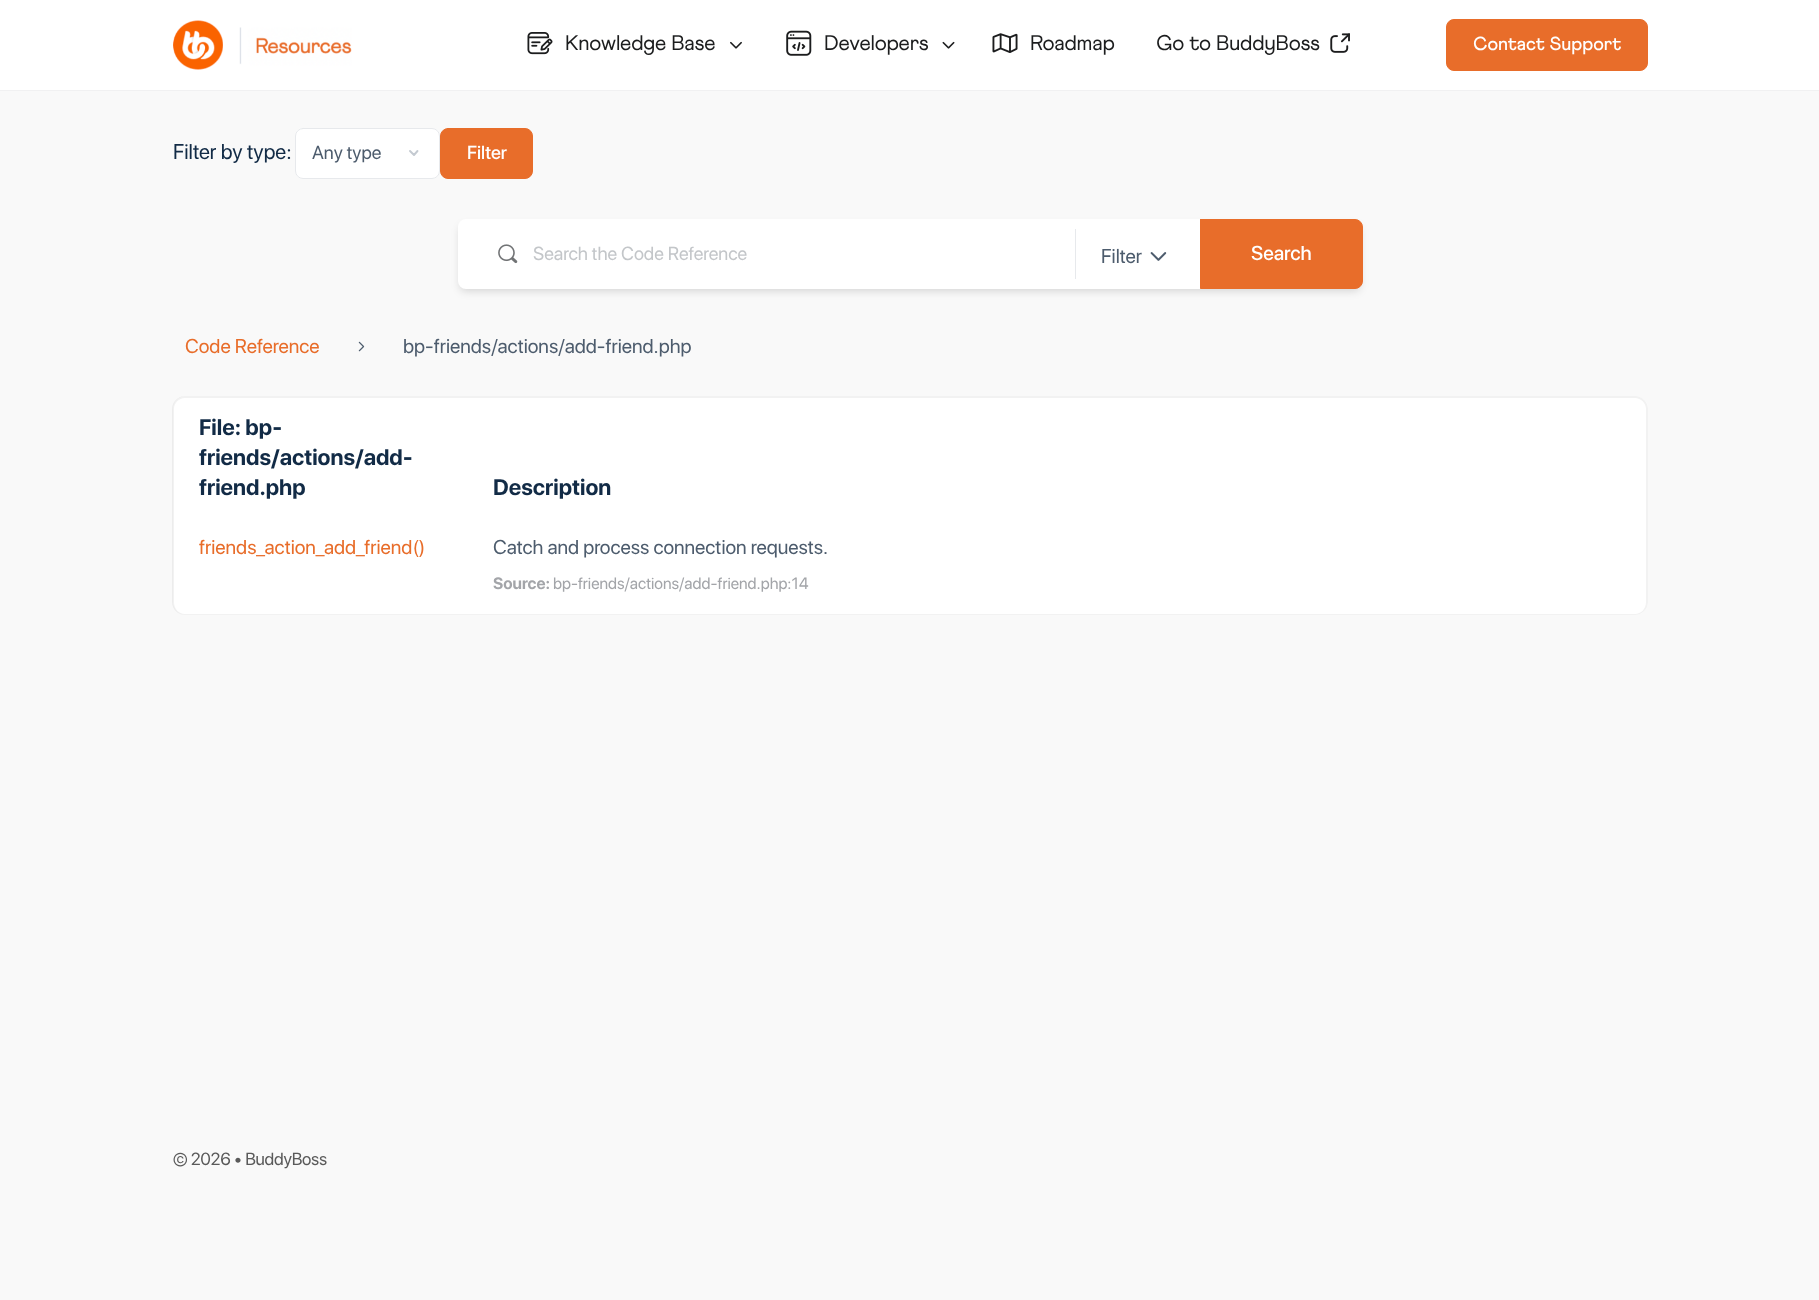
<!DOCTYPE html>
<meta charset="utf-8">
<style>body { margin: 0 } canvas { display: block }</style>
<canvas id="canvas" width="1819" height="1300"></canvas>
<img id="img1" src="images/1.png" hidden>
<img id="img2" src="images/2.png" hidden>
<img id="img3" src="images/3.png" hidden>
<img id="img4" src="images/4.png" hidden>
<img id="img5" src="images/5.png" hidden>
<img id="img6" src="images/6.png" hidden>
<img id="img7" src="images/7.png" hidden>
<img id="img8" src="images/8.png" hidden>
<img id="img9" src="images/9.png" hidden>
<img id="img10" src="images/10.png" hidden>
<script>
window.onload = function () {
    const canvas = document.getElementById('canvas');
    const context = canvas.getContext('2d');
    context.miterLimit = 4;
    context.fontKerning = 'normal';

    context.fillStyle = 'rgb(249, 249, 249)';
    context.fillRect(0, 0, 1819, 1300);
    context.fillStyle = 'rgb(241, 241, 242)';
    context.fillRect(0, 90, 1819, 1);
    context.fillStyle = 'rgb(255, 255, 255)';
    context.fillRect(0, 0, 1819, 90);
    context.drawImage(document.getElementById('img1'), 173, 20, 179, 50);
    context.drawImage(document.getElementById('img2'), 527, 32, 26, 23);
    context.drawImage(document.getElementById('img3'), 730, 41, 12, 8);
    context.drawImage(document.getElementById('img4'), 786, 30, 26, 26);
    context.drawImage(document.getElementById('img5'), 942, 41, 13, 8);
    context.drawImage(document.getElementById('img6'), 992, 33, 26, 20);
    context.drawImage(document.getElementById('img7'), 1330, 33, 20, 20);
    context.fillStyle = 'rgb(232, 109, 42)';
    context.beginPath();
    context.roundRect(1446.5, 19.5, 201, 51, 7.5);
    context.fill();
    context.strokeStyle = 'rgb(232, 109, 42)';
    context.stroke();
    context.fillStyle = 'rgb(255, 255, 255)';
    context.beginPath();
    context.roundRect(295, 128, 145, 51, 8);
    context.fill();
    context.beginPath();
    context.moveTo(417.5, 151);
    context.lineTo(414, 155);
    context.lineTo(410, 151);
    context.strokeStyle = 'rgb(196, 202, 209)';
    context.lineWidth = 1.9;
    context.lineCap = 'round';
    context.lineJoin = 'round';
    context.stroke();
    context.beginPath();
    context.roundRect(295.5, 128.5, 144, 50, 7.5);
    context.strokeStyle = 'rgb(231, 233, 236)';
    context.lineWidth = 1;
    context.lineJoin = 'miter';
    context.stroke();
    context.fillStyle = 'rgb(232, 109, 42)';
    context.beginPath();
    context.roundRect(440.5, 128.5, 92, 50, 7.5);
    context.fill();
    context.strokeStyle = 'rgb(232, 109, 42)';
    context.stroke();
    context.fillStyle = 'rgba(0, 0, 0, 0.15)';
    context.filter = 'blur(4px)';
    context.beginPath();
    context.roundRect(460, 226, 900, 65, 5);
    context.fill();
    context.filter = 'none';
    context.fillStyle = 'rgb(255, 255, 255)';
    context.beginPath();
    context.roundRect(458, 219, 617, 70, [8, 0, 0, 8]);
    context.fill();
    context.drawImage(document.getElementById('img8'), 498, 244, 20, 20);
    context.fillRect(1075, 219, 125, 70);
    context.fillStyle = 'rgb(231, 233, 236)';
    context.fillRect(1075, 229, 1, 50);
    context.drawImage(document.getElementById('img9'), 1150, 252, 17, 9);
    context.fillStyle = 'rgb(232, 109, 42)';
    context.beginPath();
    context.roundRect(1200.5, 219.5, 162, 69, [0, 7.5, 7.5, 0]);
    context.fill();
    context.stroke();
    context.drawImage(document.getElementById('img10'), 358, 341, 7, 11);
    context.fillStyle = 'rgb(255, 255, 255)';
    context.beginPath();
    context.roundRect(173, 396, 295, 122, [13, 0, 0, 0]);
    context.fill();
    context.fillStyle = 'rgba(0, 0, 0, 0.05)';
    context.beginPath();
    context.moveTo(185, 396);
    context.lineTo(468, 396);
    context.lineTo(468, 518);
    context.lineTo(172, 518);
    context.lineTo(172, 409);
    context.bezierCurveTo(172, 402, 178, 396, 185, 396);
    context.closePath();
    context.moveTo(185, 398);
    context.lineTo(468, 398);
    context.lineTo(468, 518);
    context.lineTo(174, 518);
    context.lineTo(174, 409);
    context.bezierCurveTo(174, 403, 179, 398, 185, 398);
    context.closePath();
    context.fill('evenodd');
    context.fillStyle = 'rgb(255, 255, 255)';
    context.beginPath();
    context.roundRect(468, 396, 1180, 122, [0, 13, 0, 0]);
    context.fill();
    context.fillStyle = 'rgb(242, 242, 242)';
    context.beginPath();
    context.moveTo(468, 396);
    context.lineTo(1635, 396);
    context.bezierCurveTo(1642, 396, 1648, 402, 1648, 409);
    context.lineTo(1648, 518);
    context.lineTo(468, 518);
    context.closePath();
    context.moveTo(468, 398);
    context.lineTo(1635, 398);
    context.bezierCurveTo(1641, 398, 1646, 403, 1646, 409);
    context.lineTo(1646, 518);
    context.lineTo(468, 518);
    context.closePath();
    context.fill('evenodd');
    context.fillStyle = 'rgb(255, 255, 255)';
    context.beginPath();
    context.roundRect(173, 518, 295, 97, [0, 0, 0, 13]);
    context.fill();
    context.fillStyle = 'rgba(0, 0, 0, 0.05)';
    context.beginPath();
    context.moveTo(172, 518);
    context.lineTo(468, 518);
    context.lineTo(468, 615);
    context.lineTo(185, 615);
    context.bezierCurveTo(178, 615, 172, 609, 172, 602);
    context.closePath();
    context.moveTo(174, 518);
    context.lineTo(468, 518);
    context.lineTo(468, 614);
    context.lineTo(185, 614);
    context.bezierCurveTo(179, 614, 174, 609, 174, 602);
    context.closePath();
    context.fill('evenodd');
    context.fillStyle = 'rgb(255, 255, 255)';
    context.beginPath();
    context.roundRect(468, 518, 1180, 97, [0, 0, 13, 0]);
    context.fill();
    context.fillStyle = 'rgb(242, 242, 242)';
    context.beginPath();
    context.moveTo(468, 518);
    context.lineTo(1648, 518);
    context.lineTo(1648, 602);
    context.bezierCurveTo(1648, 609, 1642, 615, 1635, 615);
    context.lineTo(468, 615);
    context.closePath();
    context.moveTo(468, 518);
    context.lineTo(1646, 518);
    context.lineTo(1646, 602);
    context.bezierCurveTo(1646, 609, 1641, 614, 1635, 614);
    context.lineTo(468, 614);
    context.closePath();
    context.fill('evenodd');
    context.letterSpacing = '-0.25px';
    context.font = '21.25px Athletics';
    context.fillStyle = 'rgb(28, 29, 30)';
    context.fillText('Knowledge Base', 565, 50);
    context.fillText('Developers', 824, 50);
    context.fillText('Roadmap', 1030, 50);
    context.fillText('Go to BuddyBoss', 1156, 50);
    context.letterSpacing = '0px';
    context.font = '500 18.75px Athletics';
    context.fillStyle = 'rgb(255, 255, 255)';
    context.fillText('Contact Support', 1473, 50);
    context.font = '21.25px SF Pro Display';
    context.fillStyle = 'rgb(18, 43, 70)';
    context.fillText('Filter by type:', 173, 159);
    context.font = '18.75px SF Pro Display';
    context.fillStyle = 'rgb(77, 92, 109)';
    context.fillText('Any type', 312, 159);
    context.font = '500 18.75px SF Pro Display';
    context.fillStyle = 'rgb(255, 255, 255)';
    context.fillText('Filter', 467, 159);
    context.font = '18.75px SF Pro Display';
    context.fillStyle = 'rgb(195, 198, 201)';
    context.fillText('Search the Code Reference', 533, 260);
    context.font = '20px SF Pro Display';
    context.fillStyle = 'rgb(77, 92, 109)';
    context.fillText('Filter', 1101, 263);
    context.font = '500 20px SF Pro Display';
    context.fillStyle = 'rgb(255, 255, 255)';
    context.fillText('Search', 1251, 260);
    context.font = '20px SF Pro Display';
    context.fillStyle = 'rgb(232, 109, 42)';
    context.fillText('Code Reference', 185, 353);
    context.fillStyle = 'rgb(77, 92, 109)';
    context.fillText('bp-friends/actions/add-friend.php', 403, 353);
    context.font = 'bold 22.5px SF Pro Display';
    context.fillStyle = 'rgb(18, 43, 70)';
    context.fillText('File: bp-', 199, 435);
    context.fillText('friends/actions/add-', 199, 465);
    context.fillText('friend.php', 199, 495);
    context.fillText('Description', 493, 495);
    context.font = '20px SF Pro Display';
    context.fillStyle = 'rgb(232, 109, 42)';
    context.fillText('friends_action_add_friend()', 199, 554);
    context.fillStyle = 'rgb(77, 92, 109)';
    context.fillText('Catch and process connection requests.', 493, 554);
    context.font = 'bold 16.25px SF Pro Display';
    context.fillStyle = 'rgb(163, 165, 169)';
    context.fillText('Source:', 493, 589);
    context.font = '16.25px SF Pro Display';
    context.fillText('bp-friends/actions/add-friend.php:14', 553, 589);
    context.letterSpacing = '-0.25px';
    context.font = '17.5px SF Pro Display';
    context.fillStyle = 'rgb(90, 90, 90)';
    context.fillText('© 2026 • BuddyBoss', 173, 1165);
};
</script>
